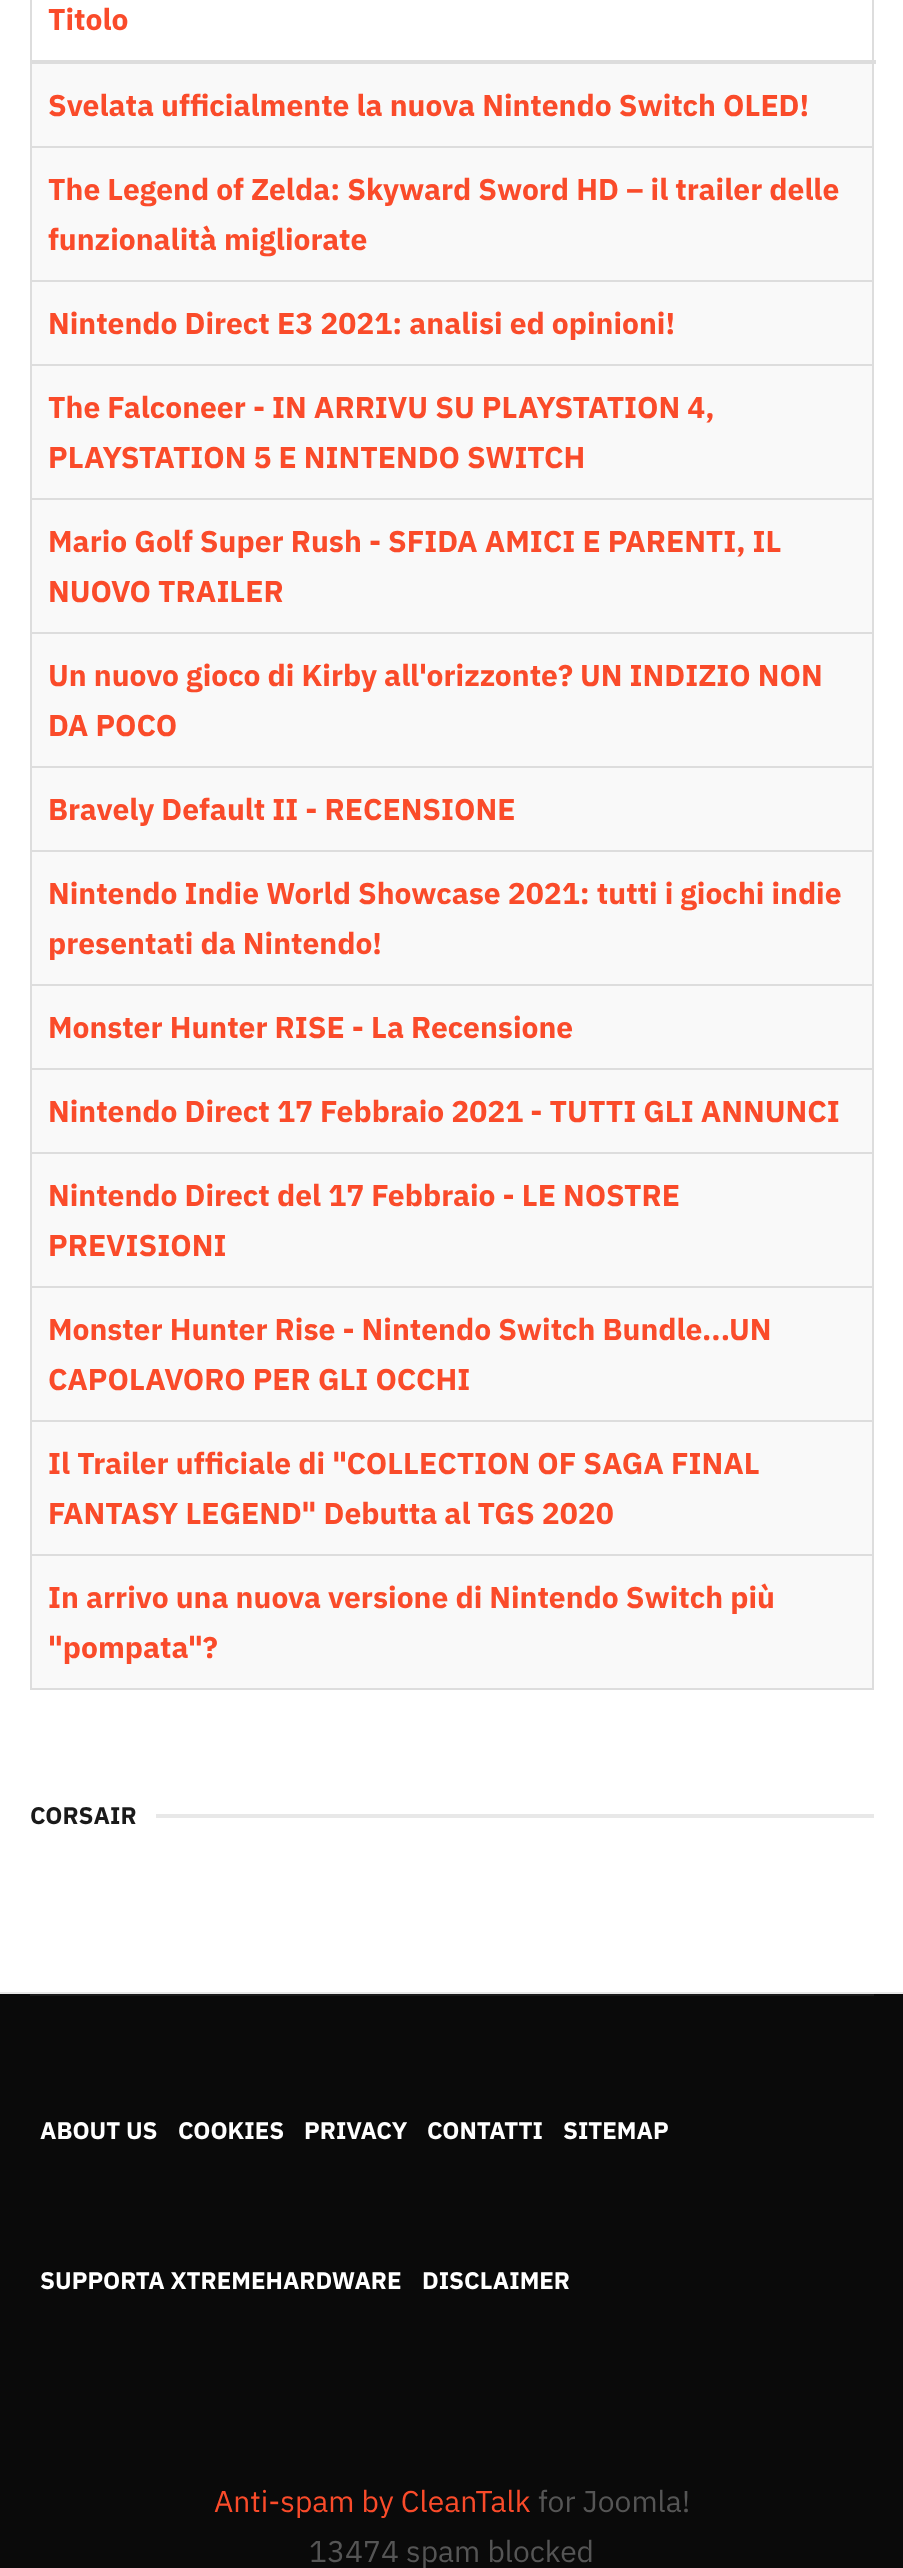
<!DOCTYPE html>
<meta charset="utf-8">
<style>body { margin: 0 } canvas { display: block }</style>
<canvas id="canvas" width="903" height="2568"></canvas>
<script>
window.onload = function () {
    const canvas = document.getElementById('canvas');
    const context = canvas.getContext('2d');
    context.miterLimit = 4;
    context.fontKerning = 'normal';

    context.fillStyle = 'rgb(255, 255, 255)';
    context.fillRect(0, 0, 903, 2568);
    context.fillStyle = 'rgb(221, 221, 221)';
    context.fillRect(30, 146, 844, 2);
    context.fillRect(30, 280, 844, 2);
    context.fillRect(30, 364, 844, 2);
    context.fillRect(30, 498, 844, 2);
    context.fillRect(30, 632, 844, 2);
    context.fillRect(30, 766, 844, 2);
    context.fillRect(30, 850, 844, 2);
    context.fillRect(30, 984, 844, 2);
    context.fillRect(30, 1068, 844, 2);
    context.fillRect(30, 1152, 844, 2);
    context.fillRect(30, 1286, 844, 2);
    context.fillRect(30, 1420, 844, 2);
    context.fillRect(30, 1554, 844, 2);
    context.fillRect(872, 1554, 2, 136);
    context.fillRect(872, 1420, 2, 136);
    context.fillRect(872, 1286, 2, 136);
    context.fillRect(872, 1152, 2, 136);
    context.fillRect(872, 1068, 2, 86);
    context.fillRect(872, 984, 2, 86);
    context.fillRect(872, 850, 2, 136);
    context.fillRect(872, 766, 2, 86);
    context.fillRect(872, 632, 2, 136);
    context.fillRect(872, 498, 2, 136);
    context.fillRect(872, 364, 2, 136);
    context.fillRect(872, 280, 2, 86);
    context.fillRect(872, 0, 2, 282);
    context.fillRect(30, 1688, 844, 2);
    context.fillRect(30, 1554, 2, 136);
    context.fillRect(30, 1420, 2, 136);
    context.fillRect(30, 1286, 2, 136);
    context.fillRect(30, 1152, 2, 136);
    context.fillRect(30, 1068, 2, 86);
    context.fillRect(30, 984, 2, 86);
    context.fillRect(30, 850, 2, 136);
    context.fillRect(30, 766, 2, 86);
    context.fillRect(30, 632, 2, 136);
    context.fillRect(30, 498, 2, 136);
    context.fillRect(30, 364, 2, 136);
    context.fillRect(30, 280, 2, 86);
    context.fillRect(30, 0, 2, 282);
    context.fillRect(30, 60, 846, 4);
    context.fillStyle = 'rgb(249, 249, 249)';
    context.fillRect(32, 64, 840, 82);
    context.fillRect(32, 148, 840, 132);
    context.fillRect(32, 282, 840, 82);
    context.fillRect(32, 366, 840, 132);
    context.fillRect(32, 500, 840, 132);
    context.fillRect(32, 634, 840, 132);
    context.fillRect(32, 768, 840, 82);
    context.fillRect(32, 852, 840, 132);
    context.fillRect(32, 986, 840, 82);
    context.fillRect(32, 1070, 840, 82);
    context.fillRect(32, 1154, 840, 132);
    context.fillRect(32, 1288, 840, 132);
    context.fillRect(32, 1422, 840, 132);
    context.fillRect(32, 1556, 840, 132);
    context.fillStyle = 'rgb(232, 232, 232)';
    context.fillRect(156, 1814, 718, 4);
    context.fillStyle = 'rgb(10, 10, 10)';
    context.fillRect(0, 1994, 903, 574);
    context.fillStyle = 'rgb(232, 232, 232)';
    context.fillRect(0, 1992, 903, 2);
    context.fillStyle = 'rgb(26, 26, 26)';
    context.fillRect(30, 1994, 844, 2);
    context.font = 'bold 30px IBM Plex Sans';
    context.fillStyle = 'rgb(250, 75, 42)';
    context.fillText('Titolo', 48, 30);
    context.fillText('Svelata ufficialmente la nuova Nintendo Switch OLED!', 48, 116);
    context.fillText('The Legend of Zelda: Skyward Sword HD – il trailer delle', 48, 200);
    context.fillText('funzionalità migliorate', 48, 250);
    context.fillText('Nintendo Direct E3 2021: analisi ed opinioni!', 48, 334);
    context.fillText('The Falconeer - IN ARRIVU SU PLAYSTATION 4,', 48, 418);
    context.fillText('PLAYSTATION 5 E NINTENDO SWITCH', 48, 468);
    context.fillText('Mario Golf Super Rush - SFIDA AMICI E PARENTI, IL', 48, 552);
    context.fillText('NUOVO TRAILER', 48, 602);
    context.fillText('Un nuovo gioco di Kirby all\'orizzonte? UN INDIZIO NON', 48, 686);
    context.fillText('DA POCO', 48, 736);
    context.fillText('Bravely Default II - RECENSIONE', 48, 820);
    context.fillText('Nintendo Indie World Showcase 2021: tutti i giochi indie', 48, 904);
    context.fillText('presentati da Nintendo!', 48, 954);
    context.fillText('Monster Hunter RISE - La Recensione', 48, 1038);
    context.fillText('Nintendo Direct 17 Febbraio 2021 - TUTTI GLI ANNUNCI', 48, 1122);
    context.fillText('Nintendo Direct del 17 Febbraio - LE NOSTRE', 48, 1206);
    context.fillText('PREVISIONI', 48, 1256);
    context.fillText('Monster Hunter Rise - Nintendo Switch Bundle...UN', 48, 1340);
    context.fillText('CAPOLAVORO PER GLI OCCHI', 48, 1390);
    context.fillText('Il Trailer ufficiale di "COLLECTION OF SAGA FINAL', 48, 1474);
    context.fillText('FANTASY LEGEND" Debutta al TGS 2020', 48, 1524);
    context.fillText('In arrivo una nuova versione di Nintendo Switch più', 48, 1608);
    context.fillText('"pompata"?', 48, 1658);
    context.font = 'bold 24px IBM Plex Sans';
    context.fillStyle = 'rgb(26, 26, 26)';
    context.fillText('CORSAIR', 30, 1824);
    context.fillStyle = 'rgb(255, 255, 255)';
    context.fillText('ABOUT US', 40, 2139);
    context.fillText('COOKIES', 178, 2139);
    context.fillText('PRIVACY', 304, 2139);
    context.fillText('CONTATTI', 427, 2139);
    context.fillText('SITEMAP', 563, 2139);
    context.fillText('SUPPORTA XTREMEHARDWARE', 40, 2289);
    context.fillText('DISCLAIMER', 422, 2289);
    context.font = '30px IBM Plex Sans';
    context.fillStyle = 'rgb(250, 75, 42)';
    context.fillText('Anti-spam by CleanTalk', 214, 2512);
    context.fillStyle = 'rgb(85, 85, 85)';
    context.fillText('for Joomla!', 538, 2512);
    context.fillText('13474 spam blocked', 309, 2562);
};
</script>
